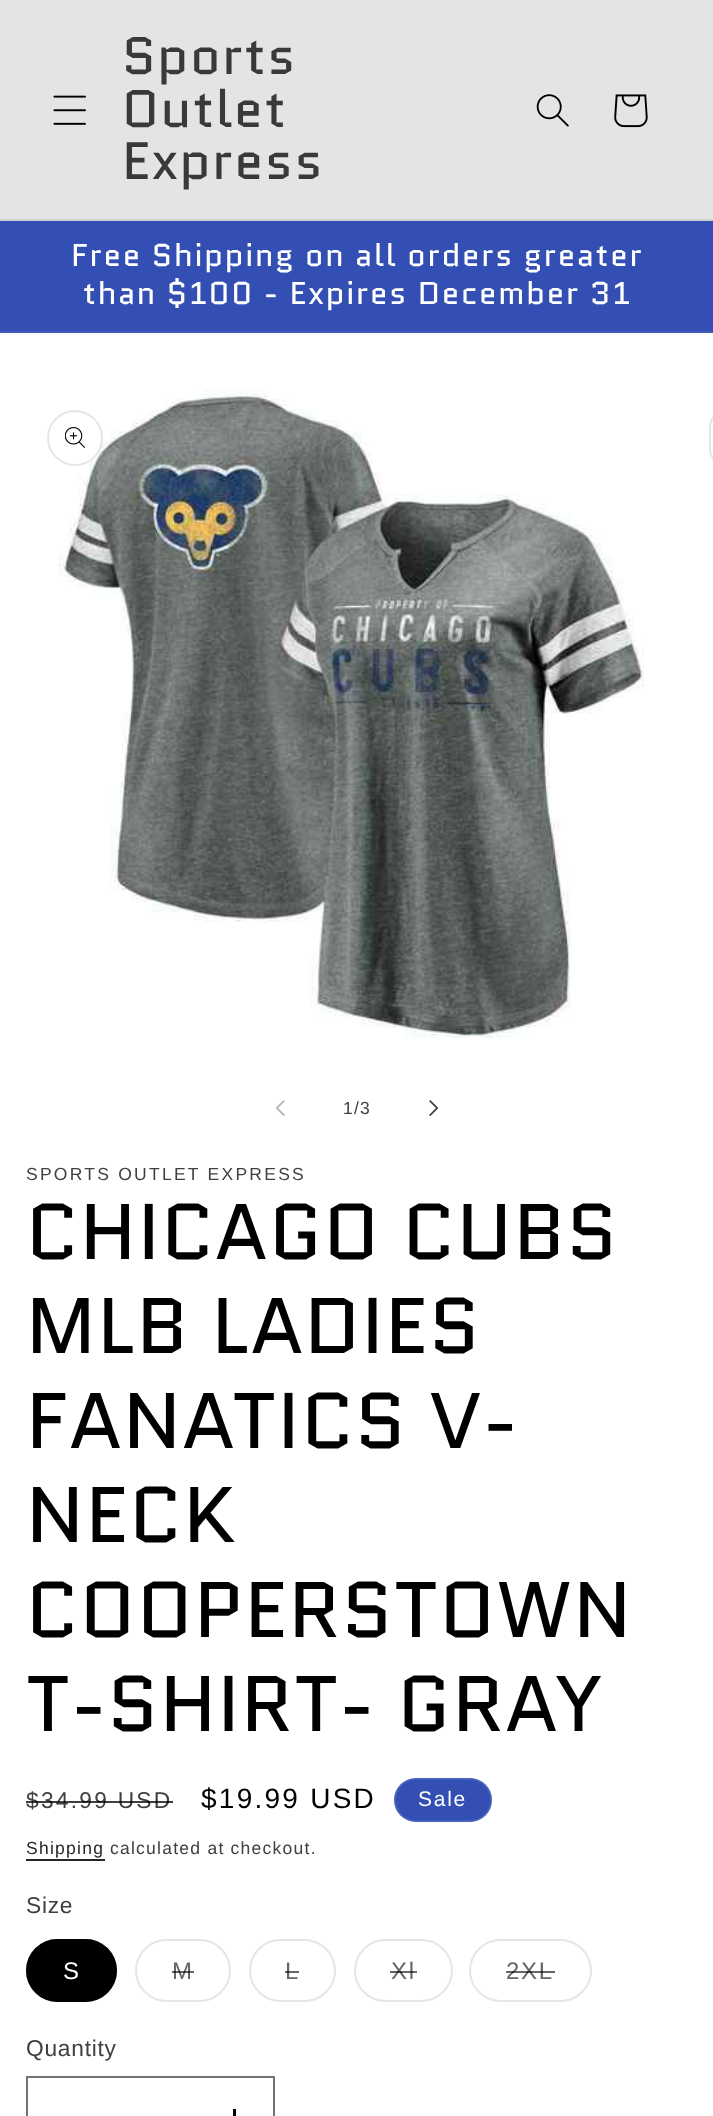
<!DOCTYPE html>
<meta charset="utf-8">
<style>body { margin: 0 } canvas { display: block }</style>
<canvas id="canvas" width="713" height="2116"></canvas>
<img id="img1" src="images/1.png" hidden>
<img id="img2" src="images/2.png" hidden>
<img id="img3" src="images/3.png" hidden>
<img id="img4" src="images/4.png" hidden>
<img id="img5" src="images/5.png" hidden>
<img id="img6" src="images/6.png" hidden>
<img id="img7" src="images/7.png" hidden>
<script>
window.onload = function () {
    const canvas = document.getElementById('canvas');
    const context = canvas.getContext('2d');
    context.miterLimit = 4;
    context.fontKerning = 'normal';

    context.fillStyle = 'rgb(255, 255, 255)';
    context.fillRect(0, 0, 713, 2116);
    context.fillStyle = 'rgb(228, 228, 228)';
    context.fillRect(0, 0, 713, 219);
    context.fillStyle = 'rgb(210, 210, 210)';
    context.fillRect(0, 219, 713, 2);
    context.drawImage(document.getElementById('img1'), 53, 95, 33, 30);
    context.drawImage(document.getElementById('img2'), 536, 94, 33, 33);
    context.drawImage(document.getElementById('img3'), 614, 94, 34, 34);
    context.fillStyle = 'rgb(51, 79, 180)';
    context.fillRect(0, 221, 713, 110);
    context.fillStyle = 'rgb(67, 93, 186)';
    context.fillRect(0, 331, 713, 2);
    context.drawImage(document.getElementById('img4'), 58, 389, 587, 649);
    context.fillStyle = 'rgb(255, 255, 255)';
    context.beginPath();
    context.arc(75, 438, 28, 0, 2 * Math.PI);
    context.fill();
    context.beginPath();
    context.arc(75, 438, 27, 0, 2 * Math.PI);
    context.strokeStyle = 'rgba(0, 0, 0, 0.1)';
    context.lineWidth = 2;
    context.stroke();
    context.drawImage(document.getElementById('img5'), 65, 427, 20, 21);
    context.beginPath();
    context.roundRect(710, 411, 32, 54, 27);
    context.strokeStyle = 'rgb(230, 230, 230)';
    context.stroke();
    context.drawImage(document.getElementById('img6'), 276, 1100, 9, 16);
    context.drawImage(document.getElementById('img7'), 429, 1100, 9, 16);
    context.fillStyle = 'rgb(51, 79, 180)';
    context.beginPath();
    context.roundRect(394, 1778, 98, 44, 22);
    context.fill();
    context.beginPath();
    context.roundRect(395, 1779, 96, 42, 21);
    context.strokeStyle = 'rgba(255, 255, 255, 0.1)';
    context.stroke();
    context.fillStyle = 'rgb(38, 38, 38)';
    context.fillRect(26, 1859, 79, 2);
    context.fillStyle = 'rgb(0, 0, 0)';
    context.beginPath();
    context.roundRect(26, 1939, 91, 63, 31.5);
    context.fill();
    context.beginPath();
    context.roundRect(27, 1940, 89, 61, 30.5);
    context.strokeStyle = 'rgba(0, 0, 0, 0.55)';
    context.stroke();
    context.beginPath();
    context.roundRect(136, 1940, 94, 61, 30.5);
    context.strokeStyle = 'rgb(230, 230, 230)';
    context.stroke();
    context.beginPath();
    context.roundRect(250, 1940, 85, 61, 30.5);
    context.stroke();
    context.beginPath();
    context.roundRect(355, 1940, 97, 61, 30.5);
    context.stroke();
    context.beginPath();
    context.roundRect(470, 1940, 121, 61, 30.5);
    context.stroke();
    context.fillRect(233, 2109, 3, 7);
    context.strokeStyle = 'rgb(115, 115, 115)';
    context.strokeRect(27, 2077, 247, 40);
    context.letterSpacing = '1.5px';
    context.font = '52.5px Quantico';
    context.fillStyle = 'rgb(57, 57, 57)';
    context.fillText('Sports', 122, 74);
    context.fillText('Outlet', 122, 127);
    context.fillText('Express', 122, 179);
    context.letterSpacing = '1.75px';
    context.font = '31.5px Quantico';
    context.fillStyle = 'rgb(255, 255, 255)';
    context.fillText('Free Shipping on all orders greater', 71, 266);
    context.fillText('than $100 - Expires December 31', 83, 304);
    context.letterSpacing = '1.25px';
    context.font = '17.5px Arimo';
    context.fillStyle = 'rgb(64, 64, 64)';
    context.fillText('1/3', 343, 1114);
    context.letterSpacing = '2.25px';
    context.fillText('SPORTS OUTLET EXPRESS', 26, 1180);
    context.letterSpacing = '1.5px';
    context.font = '78.75px Quantico';
    context.fillStyle = 'rgb(0, 0, 0)';
    context.fillText('CHICAGO CUBS', 26, 1259);
    context.fillText('MLB LADIES', 26, 1353);
    context.fillText('FANATICS V-', 26, 1448);
    context.fillText('NECK', 26, 1542);
    context.fillText('COOPERSTOWN', 26, 1637);
    context.fillText('T-SHIRT- GRAY', 26, 1731);
    context.letterSpacing = '2.25px';
    context.font = '22.75px Arimo';
    context.fillStyle = 'rgb(64, 64, 64)';
    context.fillText('$34.99 USD', 26, 1808);
    context.fillStyle = 'rgba(0, 0, 0, 0.75)';
    context.fillRect(26, 1801, 147, 2);
    context.font = '28px Arimo';
    context.fillStyle = 'rgb(0, 0, 0)';
    context.fillText('$19.99 USD', 201, 1808);
    context.letterSpacing = '1.75px';
    context.font = '21px Arimo';
    context.fillStyle = 'rgb(255, 255, 255)';
    context.fillText('Sale', 418, 1806);
    context.letterSpacing = '1.25px';
    context.font = '17.5px Arimo';
    context.fillStyle = 'rgb(38, 38, 38)';
    context.fillText('Shipping', 26, 1854);
    context.fillStyle = 'rgb(64, 64, 64)';
    context.fillText('calculated at checkout.', 110, 1854);
    context.letterSpacing = '0.75px';
    context.font = '22.75px Arimo';
    context.fillText('Size', 26, 1913);
    context.letterSpacing = '1.75px';
    context.font = '24px Arimo';
    context.fillStyle = 'rgb(255, 255, 255)';
    context.fillText('S', 63, 1979);
    context.fillStyle = 'rgb(102, 102, 102)';
    context.fillText('M', 172, 1979);
    context.fillStyle = 'rgba(0, 0, 0, 0.6)';
    context.fillRect(172, 1971, 22, 2);
    context.fillStyle = 'rgb(102, 102, 102)';
    context.fillText('L', 285, 1979);
    context.fillStyle = 'rgba(0, 0, 0, 0.6)';
    context.fillRect(285, 1971, 14, 2);
    context.fillStyle = 'rgb(102, 102, 102)';
    context.fillText('Xl', 391, 1979);
    context.fillStyle = 'rgba(0, 0, 0, 0.6)';
    context.fillRect(390, 1971, 27, 2);
    context.fillStyle = 'rgb(102, 102, 102)';
    context.fillText('2XL', 506, 1979);
    context.fillStyle = 'rgba(0, 0, 0, 0.6)';
    context.fillRect(506, 1971, 49, 2);
    context.letterSpacing = '0.75px';
    context.font = '22.75px Arimo';
    context.fillStyle = 'rgb(64, 64, 64)';
    context.fillText('Quantity', 26, 2056);
};
</script>
